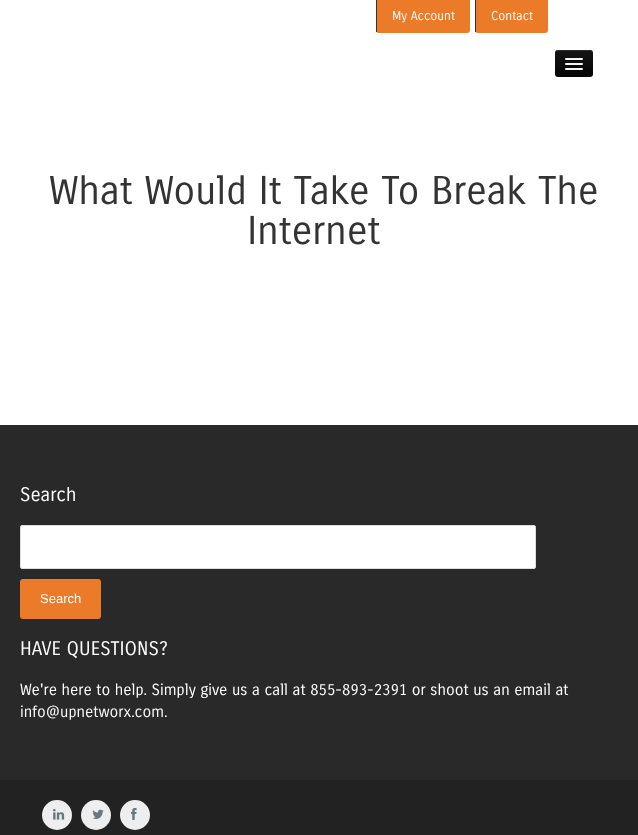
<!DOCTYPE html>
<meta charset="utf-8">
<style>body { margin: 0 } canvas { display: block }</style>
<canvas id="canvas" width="638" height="835"></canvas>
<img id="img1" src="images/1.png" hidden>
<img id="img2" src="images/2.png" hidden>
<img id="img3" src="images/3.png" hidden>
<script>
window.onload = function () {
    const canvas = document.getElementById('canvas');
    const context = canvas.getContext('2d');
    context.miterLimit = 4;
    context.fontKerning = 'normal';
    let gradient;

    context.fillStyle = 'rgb(255, 255, 255)';
    context.fillRect(0, 0, 638, 835);
    context.fillStyle = 'rgb(235, 122, 41)';
    context.beginPath();
    context.roundRect(376, 0, 94, 33, [0, 0, 3, 3]);
    context.fill();
    context.fillStyle = 'rgb(51, 51, 51)';
    context.fillRect(376, 0, 1, 32);
    context.fillStyle = 'rgb(235, 122, 41)';
    context.beginPath();
    context.roundRect(475, 0, 73, 33, [0, 0, 3, 3]);
    context.fill();
    context.fillStyle = 'rgb(51, 51, 51)';
    context.fillRect(475, 0, 1, 32);
    gradient = context.createLinearGradient(574, 50, 574, 77);
    gradient.addColorStop(0, 'rgb(21, 21, 21)');
    gradient.addColorStop(1, 'rgb(4, 4, 4)');
    context.fillStyle = gradient;
    context.beginPath();
    context.roundRect(555, 50, 38, 27, 3);
    context.fill();
    context.fillStyle = 'rgb(44, 44, 44)';
    context.beginPath();
    context.moveTo(558, 51);
    context.lineTo(590, 51);
    context.bezierCurveTo(592, 51, 593, 52, 593, 54);
    context.bezierCurveTo(593, 49, 589, 50, 584.5, 50);
    context.lineTo(563.5, 50);
    context.bezierCurveTo(559, 50, 555, 49, 555, 54);
    context.bezierCurveTo(555, 52, 556, 51, 558, 51);
    context.closePath();
    context.fill();
    context.fillStyle = 'rgb(11, 11, 11)';
    context.beginPath();
    context.moveTo(565, 59.5);
    context.bezierCurveTo(564, 61.5, 568.5, 61, 568.5, 61);
    context.lineTo(579.5, 61);
    context.bezierCurveTo(579.5, 61, 584, 61.5, 583, 59.5);
    context.bezierCurveTo(582, 60.5, 575.5, 60, 574, 60);
    context.bezierCurveTo(572.5, 60, 566, 60.5, 565, 59.5);
    context.closePath();
    context.fill();
    context.fillStyle = 'rgb(245, 245, 245)';
    context.beginPath();
    context.roundRect(565, 58, 18, 2, 1);
    context.fill();
    context.fillStyle = 'rgb(8, 8, 8)';
    context.beginPath();
    context.moveTo(565, 64.5);
    context.bezierCurveTo(564, 66.5, 568.5, 66, 568.5, 66);
    context.lineTo(579.5, 66);
    context.bezierCurveTo(579.5, 66, 584, 66.5, 583, 64.5);
    context.bezierCurveTo(582, 65.5, 575.5, 65, 574, 65);
    context.bezierCurveTo(572.5, 65, 566, 65.5, 565, 64.5);
    context.closePath();
    context.fill();
    context.fillStyle = 'rgb(245, 245, 245)';
    context.beginPath();
    context.roundRect(565, 63, 18, 2, 1);
    context.fill();
    context.beginPath();
    context.roundRect(565, 68, 18, 2, 1);
    context.fill();
    context.fillStyle = 'rgb(41, 41, 41)';
    context.fillRect(0, 425, 638, 355);
    context.fillStyle = 'rgb(255, 255, 255)';
    context.beginPath();
    context.roundRect(20.5, 525.5, 515, 43, 1.5);
    context.fill();
    context.strokeStyle = 'rgb(221, 221, 221)';
    context.stroke();
    context.fillStyle = 'rgb(235, 122, 41)';
    context.beginPath();
    context.roundRect(20, 579, 81, 40, 3);
    context.fill();
    context.fillStyle = 'rgb(34, 34, 34)';
    context.fillRect(0, 780, 638, 55);
    context.fillStyle = 'rgb(238, 238, 238)';
    context.beginPath();
    context.arc(57, 815, 15, 0, 2 * Math.PI);
    context.fill();
    context.drawImage(document.getElementById('img1'), 53, 808, 12, 12);
    context.beginPath();
    context.arc(96, 815, 15, 0, 2 * Math.PI);
    context.fill();
    context.drawImage(document.getElementById('img2'), 92, 809, 12, 10);
    context.beginPath();
    context.arc(135, 815, 15, 0, 2 * Math.PI);
    context.fill();
    context.drawImage(document.getElementById('img3'), 131, 808, 6, 12);
    context.font = '12.5px Carrois Gothic';
    context.fillStyle = 'rgb(255, 255, 255)';
    context.fillText('My Account', 392, 20);
    context.fillText('Contact', 491, 20);
    context.font = '39px Carrois Gothic';
    context.fillStyle = 'rgb(51, 51, 51)';
    context.fillText('What Would It Take To Break The', 49, 204);
    context.fillText('Internet', 247, 244);
    context.font = '19px Carrois Gothic';
    context.fillStyle = 'rgb(255, 255, 255)';
    context.fillText('Search', 20, 501);
    context.font = '13px Liberation Sans';
    context.fillText('Search', 40, 603);
    context.font = '19px Carrois Gothic';
    context.fillText('HAVE QUESTIONS?', 20, 655);
    context.font = '15.5px Carrois Gothic';
    context.fillText('We\'re here to help. Simply give us a call at 855-893-2391 or shoot us an email at', 20, 695);
    context.fillStyle = 'rgb(249, 249, 249)';
    context.fillText('info@upnetworx.com', 20, 717);
    context.fillStyle = 'rgb(255, 255, 255)';
    context.fillText('.', 164, 717);
};
</script>
